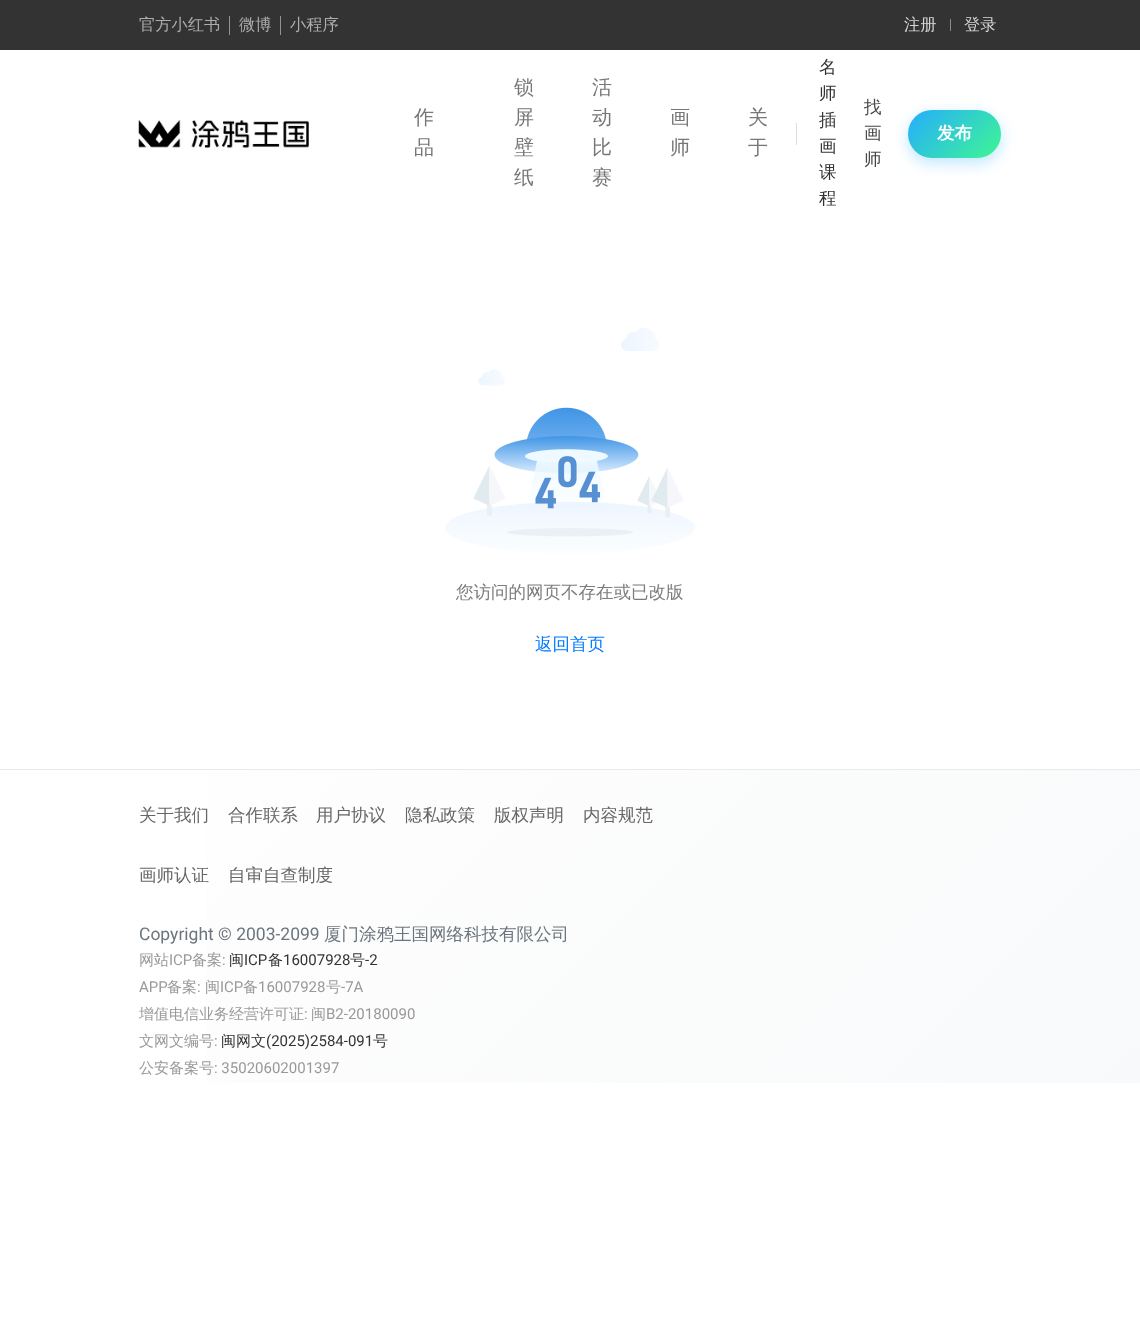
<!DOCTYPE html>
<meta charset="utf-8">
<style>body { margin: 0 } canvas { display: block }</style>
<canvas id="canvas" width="1140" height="1321"></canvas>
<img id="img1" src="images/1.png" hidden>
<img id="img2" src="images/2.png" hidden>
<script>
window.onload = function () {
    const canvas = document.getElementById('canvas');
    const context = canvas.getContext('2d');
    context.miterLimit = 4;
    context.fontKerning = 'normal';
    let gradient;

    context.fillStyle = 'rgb(255, 255, 255)';
    context.fillRect(0, 0, 1140, 1321);
    context.fillStyle = 'rgb(51, 51, 51)';
    context.fillRect(0, 0, 1140, 50);
    context.fillStyle = 'rgb(146, 146, 146)';
    context.fillRect(229, 16, 1, 19);
    context.fillRect(280, 16, 1, 19);
    context.fillStyle = 'rgb(137, 139, 141)';
    context.fillRect(950, 19, 1, 12);
    context.drawImage(document.getElementById('img1'), 138, 120, 171, 28);
    context.fillStyle = 'rgb(221, 221, 221)';
    context.fillRect(796, 123, 1, 22);
    context.fillStyle = 'rgba(37, 172, 255, 0.3)';
    context.filter = 'blur(7.5px)';
    context.beginPath();
    context.roundRect(908, 115, 93, 48, 24);
    context.fill();
    context.filter = 'none';
    gradient = context.createLinearGradient(919, 98, 990, 169);
    gradient.addColorStop(0, 'rgb(37, 172, 255)');
    gradient.addColorStop(1, 'rgb(62, 247, 146)');
    context.fillStyle = gradient;
    context.beginPath();
    context.roundRect(908, 110, 93, 48, 24);
    context.fill();
    context.drawImage(document.getElementById('img2'), 445, 328, 250, 225);
    gradient = context.createLinearGradient(207, 563, 933, 1289);
    gradient.addColorStop(0, 'rgb(255, 255, 255)');
    gradient.addColorStop(1, 'rgb(248, 249, 250)');
    context.fillStyle = gradient;
    context.fillRect(206, 770, 934, 313);
    context.fillStyle = 'rgb(234, 234, 234)';
    context.fillRect(0, 769, 1140, 1);
    context.font = '500 16.25px WenQuanYi Zen Hei';
    context.fillStyle = 'rgb(173, 173, 173)';
    context.fillText('官方小红书', 139, 30);
    context.fillText('微博', 239, 30);
    context.fillText('小程序', 290, 30);
    context.fillStyle = 'rgb(214, 214, 214)';
    context.fillText('注册', 904, 30);
    context.fillText('登录', 964, 30);
    context.font = '500 20px WenQuanYi Zen Hei';
    context.fillStyle = 'rgb(119, 119, 119)';
    context.fillText('作', 414, 124);
    context.fillText('品', 414, 154);
    context.fillText('锁', 514, 94);
    context.fillText('屏', 514, 124);
    context.fillText('壁', 514, 154);
    context.fillText('纸', 514, 184);
    context.fillText('活', 592, 94);
    context.fillText('动', 592, 124);
    context.fillText('比', 592, 154);
    context.fillText('赛', 592, 184);
    context.fillText('画', 670, 124);
    context.fillText('师', 670, 154);
    context.fillText('关', 748, 124);
    context.fillText('于', 748, 154);
    context.font = '500 17.5px WenQuanYi Zen Hei';
    context.fillStyle = 'rgb(51, 51, 51)';
    context.fillText('名', 819, 73);
    context.fillText('师', 819, 99);
    context.fillText('插', 819, 126);
    context.fillText('画', 819, 152);
    context.fillText('课', 819, 178);
    context.fillText('程', 819, 204);
    context.fillStyle = 'rgb(71, 71, 71)';
    context.fillText('找', 864, 113);
    context.fillText('画', 864, 139);
    context.fillText('师', 864, 165);
    context.font = 'bold 17.5px WenQuanYi Zen Hei';
    context.fillStyle = 'rgb(255, 255, 255)';
    context.fillText('发布', 937, 139);
    context.font = '500 17.5px WenQuanYi Zen Hei';
    context.fillStyle = 'rgb(122, 124, 127)';
    context.fillText('您访问的网页不存在或已改版', 456, 598);
    context.fillStyle = 'rgb(0, 123, 255)';
    context.fillText('返回首页', 535, 650);
    context.fillStyle = 'rgb(102, 102, 102)';
    context.fillText('关于我们', 139, 821);
    context.fillText('合作联系', 228, 821);
    context.fillText('用户协议', 316, 821);
    context.fillText('隐私政策', 405, 821);
    context.fillText('版权声明', 494, 821);
    context.fillText('内容规范', 583, 821);
    context.fillText('画师认证', 139, 881);
    context.fillText('自审自查制度', 228, 881);
    context.font = '17.5px Roboto';
    context.fillStyle = 'rgb(108, 117, 125)';
    context.fillText('Copyright © 2003-2099', 139, 940);
    context.font = '500 17.5px WenQuanYi Zen Hei';
    context.fillText('厦门涂鸦王国网络科技有限公司', 324, 940);
    context.font = '500 15px WenQuanYi Zen Hei';
    context.fillStyle = 'rgb(153, 153, 153)';
    context.fillText('网站', 139, 965);
    context.font = '15px Roboto';
    context.fillText('ICP', 169, 965);
    context.font = '500 15px WenQuanYi Zen Hei';
    context.fillText('备案', 192, 965);
    context.font = '15px Roboto';
    context.fillText(':', 222, 965);
    context.font = '500 15px WenQuanYi Zen Hei';
    context.fillStyle = 'rgb(51, 51, 51)';
    context.fillText('闽', 229, 965);
    context.font = '15px Roboto';
    context.fillText('ICP', 244, 965);
    context.font = '500 15px WenQuanYi Zen Hei';
    context.fillText('备', 268, 965);
    context.font = '15px Roboto';
    context.fillText('16007928', 283, 965);
    context.font = '500 15px WenQuanYi Zen Hei';
    context.fillText('号', 350, 965);
    context.font = '15px Roboto';
    context.fillText('-2', 365, 965);
    context.fillStyle = 'rgb(153, 153, 153)';
    context.fillText('APP', 139, 992);
    context.font = '500 15px WenQuanYi Zen Hei';
    context.fillText('备案', 167, 992);
    context.font = '15px Roboto';
    context.fillText(':', 197, 992);
    context.font = '500 15px WenQuanYi Zen Hei';
    context.fillText('闽', 205, 992);
    context.font = '15px Roboto';
    context.fillText('ICP', 220, 992);
    context.font = '500 15px WenQuanYi Zen Hei';
    context.fillText('备', 243, 992);
    context.font = '15px Roboto';
    context.fillText('16007928', 258, 992);
    context.font = '500 15px WenQuanYi Zen Hei';
    context.fillText('号', 326, 992);
    context.font = '15px Roboto';
    context.fillText('-7A', 341, 992);
    context.font = '500 15px WenQuanYi Zen Hei';
    context.fillText('增值电信业务经营许可证', 139, 1019);
    context.font = '15px Roboto';
    context.fillText(':', 304, 1019);
    context.font = '500 15px WenQuanYi Zen Hei';
    context.fillText('闽', 311, 1019);
    context.font = '15px Roboto';
    context.fillText('B2-20180090', 326, 1019);
    context.font = '500 15px WenQuanYi Zen Hei';
    context.fillText('文网文编号', 139, 1046);
    context.font = '15px Roboto';
    context.fillText(':', 214, 1046);
    context.font = '500 15px WenQuanYi Zen Hei';
    context.fillStyle = 'rgb(51, 51, 51)';
    context.fillText('闽网文', 221, 1046);
    context.font = '15px Roboto';
    context.fillText('(2025)2584-091', 266, 1046);
    context.font = '500 15px WenQuanYi Zen Hei';
    context.fillText('号', 373, 1046);
    context.fillStyle = 'rgb(153, 153, 153)';
    context.fillText('公安备案号', 139, 1073);
    context.font = '15px Roboto';
    context.fillText(': 35020602001397', 214, 1073);
};
</script>
